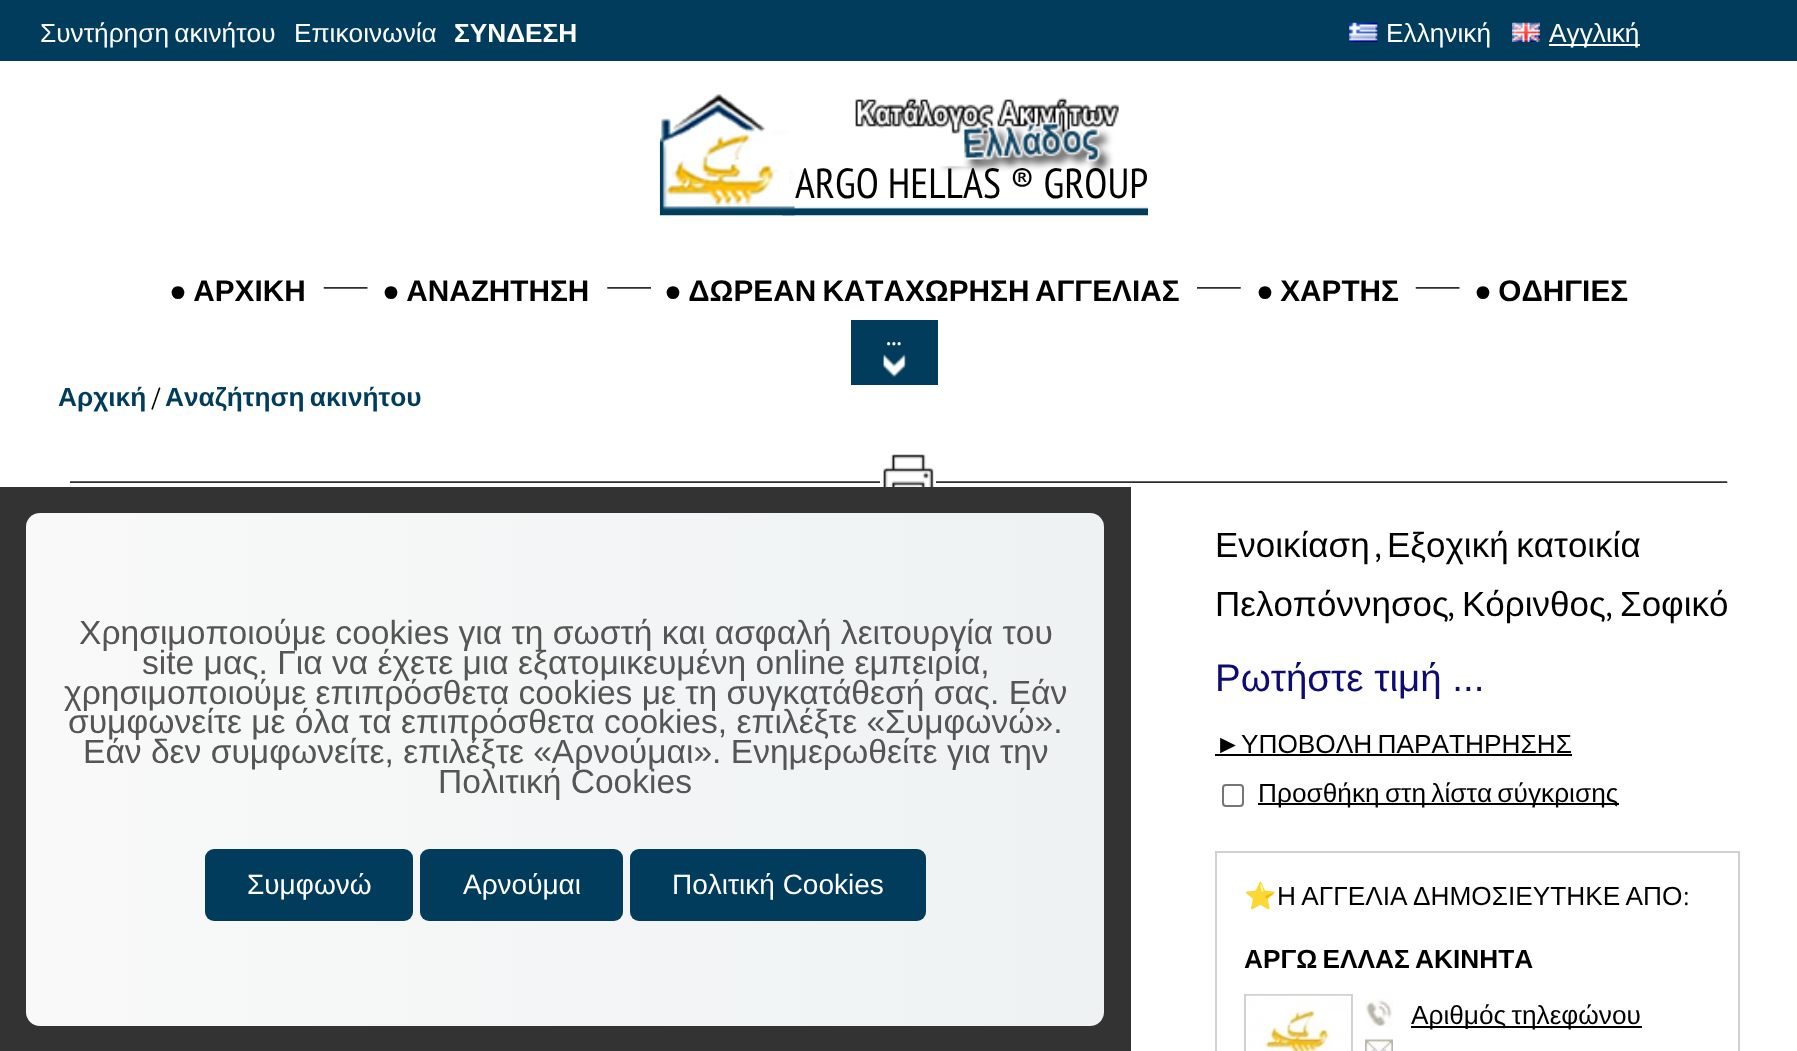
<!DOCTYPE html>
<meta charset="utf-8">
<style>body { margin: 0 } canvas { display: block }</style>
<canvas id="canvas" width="1797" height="1051"></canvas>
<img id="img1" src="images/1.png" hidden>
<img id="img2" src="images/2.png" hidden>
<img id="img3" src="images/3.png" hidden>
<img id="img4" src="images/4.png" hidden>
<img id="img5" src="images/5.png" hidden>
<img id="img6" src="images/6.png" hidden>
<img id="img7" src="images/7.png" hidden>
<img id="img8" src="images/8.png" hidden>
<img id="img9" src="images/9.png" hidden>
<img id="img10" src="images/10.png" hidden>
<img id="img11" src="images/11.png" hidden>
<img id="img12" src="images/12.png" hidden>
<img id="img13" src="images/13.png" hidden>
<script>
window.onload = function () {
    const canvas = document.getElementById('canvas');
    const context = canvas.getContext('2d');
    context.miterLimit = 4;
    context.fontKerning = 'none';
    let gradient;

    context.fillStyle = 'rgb(255, 255, 255)';
    context.fillRect(0, 0, 1797, 1051);
    context.fillStyle = 'rgb(1, 60, 92)';
    context.fillRect(0, 0, 1797, 61);
    context.drawImage(document.getElementById('img1'), 1349, 22, 29, 20);
    context.drawImage(document.getElementById('img2'), 1512, 22, 28, 20);
    context.fillStyle = 'rgb(255, 255, 255)';
    context.fillRect(1549, 44, 91, 2);
    context.drawImage(document.getElementById('img3'), 782, 97, 366, 119);
    context.drawImage(document.getElementById('img4'), 659, 94, 136, 122);
    context.drawImage(document.getElementById('img5'), 323, 287, 45, 2);
    context.drawImage(document.getElementById('img6'), 607, 287, 44, 2);
    context.drawImage(document.getElementById('img7'), 1197, 287, 44, 2);
    context.drawImage(document.getElementById('img5'), 1415, 287, 45, 2);
    context.fillStyle = 'rgb(1, 60, 92)';
    context.fillRect(851, 320, 87, 65);
    context.drawImage(document.getElementById('img8'), 883, 354, 24, 23);
    context.drawImage(document.getElementById('img9'), 70, 481, 1658, 2);
    context.fillStyle = 'rgb(255, 255, 255)';
    context.fillRect(880, 481, 56, 2);
    context.drawImage(document.getElementById('img10'), 883, 454, 51, 33);
    context.fillStyle = 'rgb(0, 0, 0)';
    context.fillRect(1215, 754, 357, 2);
    context.beginPath();
    context.roundRect(1223, 785, 20, 21, 3);
    context.strokeStyle = 'rgb(118, 118, 118)';
    context.lineWidth = 2;
    context.stroke();
    context.fillRect(1258, 803, 361, 2);
    context.strokeStyle = 'rgb(209, 209, 209)';
    context.strokeRect(1216, 852, 523, 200);
    context.strokeRect(1245, 995, 107, 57);
    context.drawImage(document.getElementById('img11'), 1246, 995, 105, 56);
    context.drawImage(document.getElementById('img12'), 1365, 999, 28, 28);
    context.fillRect(1411, 1026, 231, 2);
    context.drawImage(document.getElementById('img13'), 1365, 1039, 28, 12);
    context.fillStyle = 'rgb(51, 51, 51)';
    context.fillRect(0, 487, 1131, 564);
    gradient = context.createLinearGradient(26, 769, 1104, 769);
    gradient.addColorStop(0, 'rgb(249, 249, 249)');
    gradient.addColorStop(1, 'rgb(238, 242, 243)');
    context.fillStyle = gradient;
    context.beginPath();
    context.roundRect(26, 513, 1078, 513, 14);
    context.fill();
    context.fillStyle = 'rgb(1, 60, 92)';
    context.beginPath();
    context.roundRect(205, 849, 208, 72, 9);
    context.fill();
    context.beginPath();
    context.roundRect(420, 849, 203, 72, 9);
    context.fill();
    context.beginPath();
    context.roundRect(630, 849, 296, 72, 9);
    context.fill();
    context.wordSpacing = '-2px';
    context.font = '26.25px Liberation Sans';
    context.fillStyle = 'rgb(255, 255, 255)';
    context.fillText('Συντήρηση ακινήτου', 40, 42);
    context.wordSpacing = '0px';
    context.fillText('Επικοινωνία', 294, 42);
    context.font = 'bold 26.25px Liberation Sans';
    context.fillText('ΣΥΝΔΕΣΗ', 454, 42);
    context.font = '26.25px Liberation Sans';
    context.fillText('Ελληνική', 1386, 42);
    context.fillText('Αγγλική', 1549, 42);
    context.font = '42px PT Sans Narrow';
    context.fillStyle = 'rgb(0, 0, 0)';
    context.fillText('ARGO HELLAS ® GROUP', 795, 198);
    context.wordSpacing = '-2px';
    context.font = 'bold 29.75px Liberation Sans';
    context.fillText('● ΑΡΧΙΚΗ', 169, 301);
    context.fillText('● ΑΝΑΖΗΤΗΣΗ', 382, 301);
    context.fillText('● ΔΩΡΕΑΝ ΚΑΤΑΧΩΡΗΣΗ', 664, 301);
    context.fillText('ΑΓΓΕΛΙΑΣ', 1035, 301);
    context.fillText('● ΧΑΡΤΗΣ', 1256, 301);
    context.fillText('● ΟΔΗΓΙΕΣ', 1474, 301);
    context.wordSpacing = '0px';
    context.font = '29.75px PT Sans Narrow';
    context.fillStyle = 'rgb(255, 255, 255)';
    context.fillText('...', 886, 345);
    context.font = 'bold 26.25px Liberation Sans';
    context.fillStyle = 'rgb(1, 60, 92)';
    context.fillText('Αρχική', 58, 406);
    context.font = '26.25px PT Sans Narrow';
    context.fillStyle = 'rgb(0, 0, 0)';
    context.fillText('/', 152, 406);
    context.wordSpacing = '-2px';
    context.font = 'bold 26.25px Liberation Sans';
    context.fillStyle = 'rgb(1, 60, 92)';
    context.fillText('Αναζήτηση ακινήτου', 165, 406);
    context.wordSpacing = '0px';
    context.font = '35px Liberation Sans';
    context.fillStyle = 'rgb(0, 0, 0)';
    context.fillText('Ενοικίαση', 1215, 557);
    context.font = '35px PT Sans Narrow';
    context.fillText(',', 1375, 557);
    context.wordSpacing = '-2px';
    context.font = '35px Liberation Sans';
    context.fillText('Εξοχική κατοικία', 1387, 557);
    context.wordSpacing = '0px';
    context.fillText('Πελοπόννησος', 1215, 616);
    context.font = '35px PT Sans Narrow';
    context.fillText(',', 1448, 616);
    context.font = '35px Liberation Sans';
    context.fillText('Κόρινθος', 1462, 616);
    context.font = '35px PT Sans Narrow';
    context.fillText(',', 1606, 616);
    context.font = '35px Liberation Sans';
    context.fillText('Σοφικό', 1620, 616);
    context.font = '38.5px Liberation Sans';
    context.fillStyle = 'rgb(14, 11, 113)';
    context.fillText('Ρωτήστε τιμή ...', 1215, 691);
    context.wordSpacing = '-2px';
    context.font = '26.25px Liberation Sans';
    context.fillStyle = 'rgb(0, 0, 0)';
    context.fillText('►ΥΠΟΒΟΛΗ ΠΑΡΑΤΗΡΗΣΗΣ', 1215, 753);
    context.fillText('Προσθήκη στη λίστα σύγκρισης', 1258, 802);
    context.wordSpacing = '0px';
    context.font = '26.25px Noto Color Emoji';
    context.fillText('⭐', 1244, 905);
    context.wordSpacing = '-2px';
    context.font = '26.25px Liberation Sans';
    context.fillText('Η ΑΓΓΕΛΙΑ', 1277, 905);
    context.fillText('ΔΗΜΟΣΙΕΥΤΗΚΕ ΑΠΟ', 1413, 905);
    context.wordSpacing = '0px';
    context.font = '26.25px PT Sans Narrow';
    context.fillText(':', 1683, 905);
    context.wordSpacing = '-2px';
    context.font = 'bold 26.25px Liberation Sans';
    context.fillText('ΑΡΓΩ ΕΛΛΑΣ ΑΚΙΝΗΤΑ', 1244, 968);
    context.font = '26.25px Liberation Sans';
    context.fillText('Αριθμός τηλεφώνου', 1411, 1024);
    context.wordSpacing = '0px';
    context.font = '33.6px Liberation Sans';
    context.fillStyle = 'rgb(85, 85, 85)';
    context.fillText('Χρησιμοποιούμε cookies για τη σωστή και ασφαλή λειτουργία του', 79, 644);
    context.fillText('site μας. Για να έχετε μια εξατομικευμένη online εμπειρία,', 142, 674);
    context.fillText('χρησιμοποιούμε επιπρόσθετα cookies με τη συγκατάθεσή σας. Εάν', 64, 704);
    context.fillText('συμφωνείτε με όλα τα επιπρόσθετα cookies, επιλέξτε «Συμφωνώ».', 68, 733);
    context.fillText('Εάν δεν συμφωνείτε, επιλέξτε «Αρνούμαι». Ενημερωθείτε για την', 83, 763);
    context.fillText('Πολιτική Cookies', 438, 793);
    context.font = '28px Liberation Sans';
    context.fillStyle = 'rgb(255, 255, 255)';
    context.fillText('Συμφωνώ', 247, 894);
    context.fillText('Αρνούμαι', 463, 894);
    context.fillText('Πολιτική Cookies', 672, 894);
};
</script>
